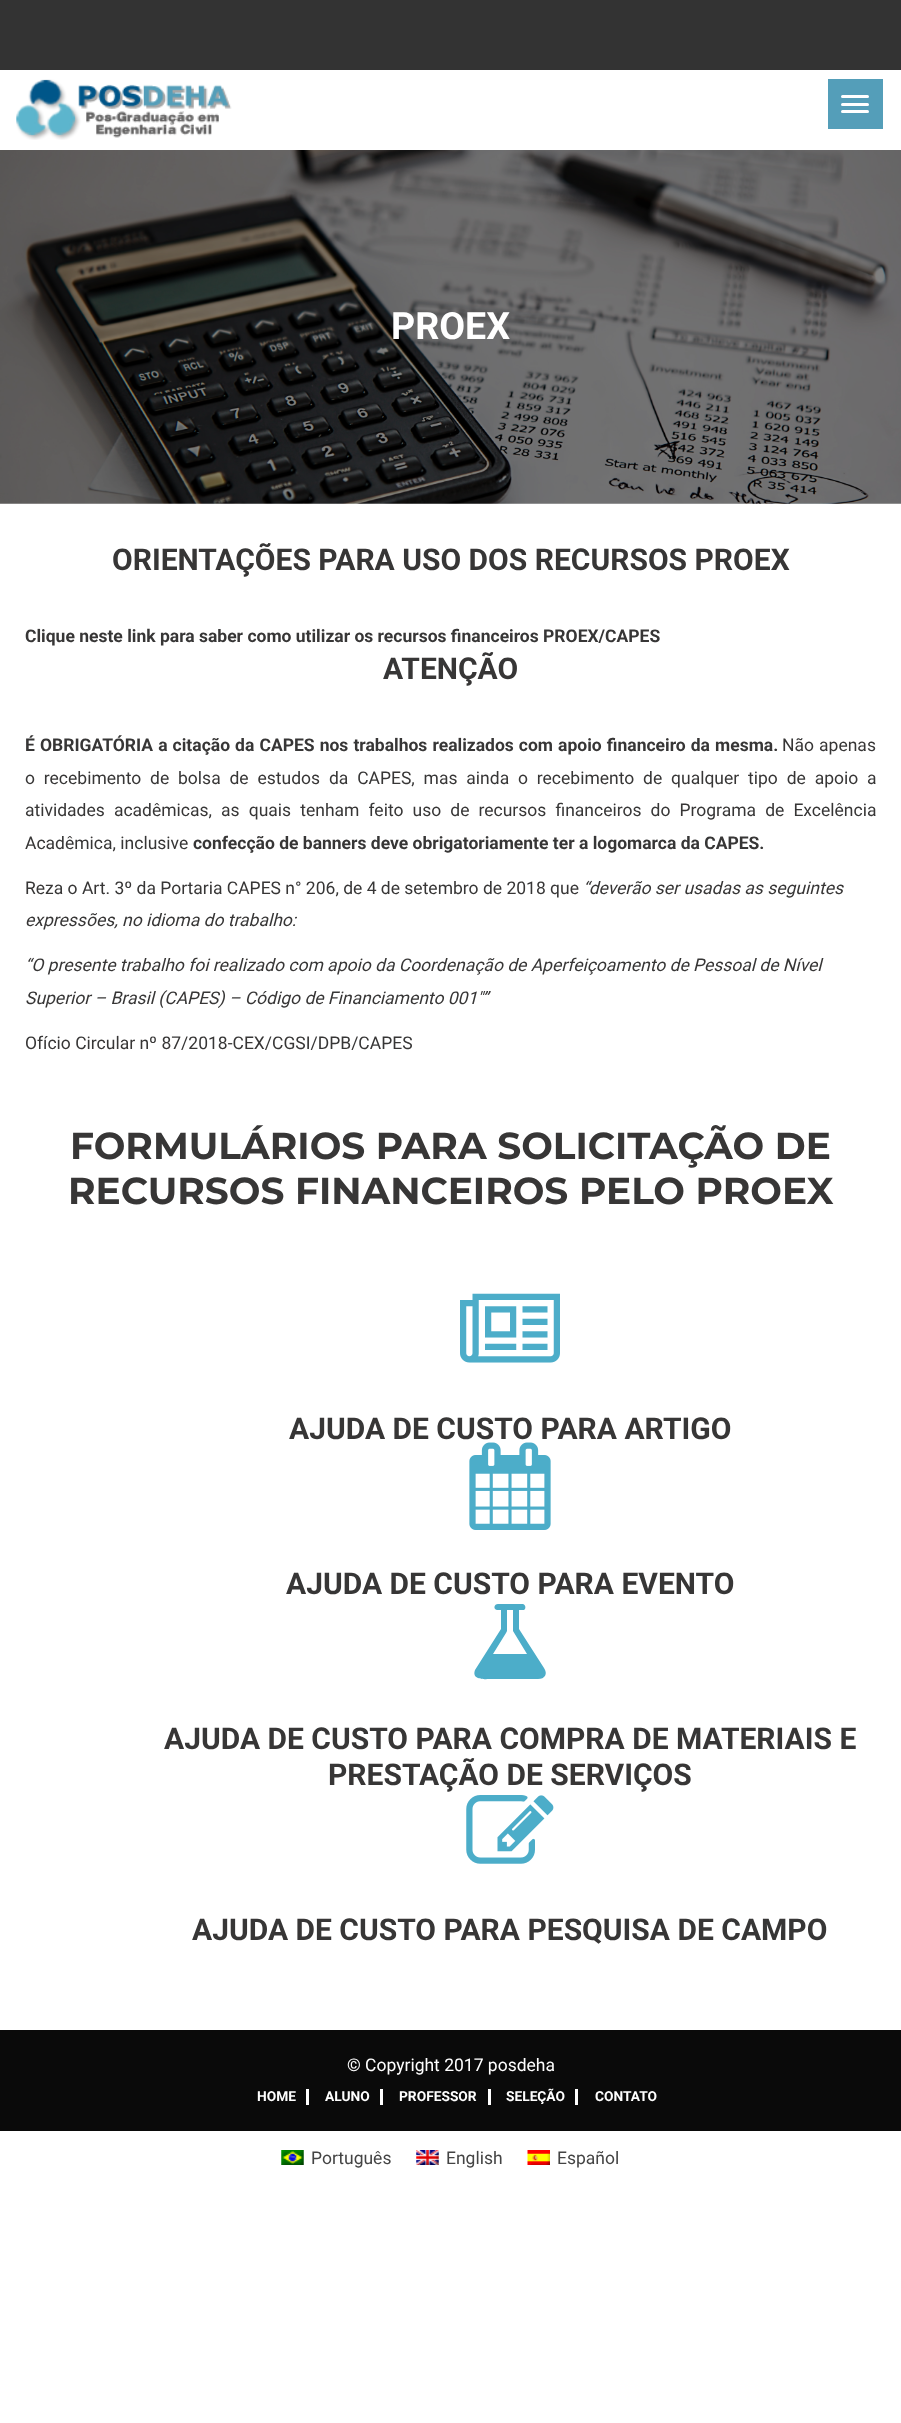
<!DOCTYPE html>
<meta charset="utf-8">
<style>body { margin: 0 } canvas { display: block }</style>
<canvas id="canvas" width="901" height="2423"></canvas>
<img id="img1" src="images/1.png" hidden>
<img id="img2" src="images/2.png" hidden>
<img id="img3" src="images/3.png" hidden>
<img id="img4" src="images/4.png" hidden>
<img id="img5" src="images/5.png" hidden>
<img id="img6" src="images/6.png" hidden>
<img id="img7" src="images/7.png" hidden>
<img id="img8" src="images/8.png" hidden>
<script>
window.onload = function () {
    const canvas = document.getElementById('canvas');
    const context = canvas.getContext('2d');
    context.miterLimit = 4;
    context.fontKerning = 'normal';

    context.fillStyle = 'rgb(255, 255, 255)';
    context.fillRect(0, 0, 901, 2423);
    context.fillStyle = 'rgb(51, 51, 51)';
    context.fillRect(0, 0, 901, 70);
    context.drawImage(document.getElementById('img1'), 16, 79, 216, 61);
    context.fillStyle = 'rgb(84, 158, 185)';
    context.fillRect(828, 79, 55, 50);
    context.fillStyle = 'rgb(255, 255, 255)';
    context.beginPath();
    context.roundRect(841, 95, 28, 3, 1.5);
    context.fill();
    context.beginPath();
    context.roundRect(841, 103, 28, 3, 1.5);
    context.fill();
    context.beginPath();
    context.roundRect(841, 110, 28, 3, 1.5);
    context.fill();
    context.drawImage(document.getElementById('img2'), 0, 150, 901, 354);
    context.drawImage(document.getElementById('img3'), 460, 1293, 100, 70);
    context.drawImage(document.getElementById('img4'), 469, 1442, 82, 88);
    context.fillStyle = 'rgb(76, 173, 201)';
    context.beginPath();
    context.moveTo(544, 1668);
    context.bezierCurveTo(548, 1674, 545, 1679, 538, 1679);
    context.lineTo(491, 1679);
    context.bezierCurveTo(487, 1679, 471, 1681, 475, 1670);
    context.lineTo(501, 1629);
    context.lineTo(501, 1610);
    context.lineTo(497, 1610);
    context.bezierCurveTo(493, 1609, 494, 1604, 498, 1604);
    context.lineTo(523, 1604);
    context.bezierCurveTo(526, 1605, 526, 1609, 524, 1610);
    context.lineTo(519, 1610);
    context.lineTo(519, 1629);
    context.closePath();
    context.moveTo(506, 1633);
    context.lineTo(493, 1654);
    context.lineTo(527, 1654);
    context.lineTo(513, 1631);
    context.lineTo(513, 1610);
    context.lineTo(507, 1610);
    context.lineTo(507, 1631);
    context.closePath();
    context.fill();
    context.drawImage(document.getElementById('img5'), 466, 1795, 88, 69);
    context.fillStyle = 'rgb(10, 10, 10)';
    context.fillRect(0, 2030, 901, 101);
    context.fillStyle = 'rgb(255, 255, 255)';
    context.fillRect(306, 2089, 3, 16);
    context.fillRect(380, 2089, 3, 16);
    context.fillRect(488, 2089, 3, 16);
    context.fillRect(575, 2089, 3, 16);
    context.drawImage(document.getElementById('img6'), 281, 2150, 23, 15);
    context.drawImage(document.getElementById('img7'), 416, 2150, 23, 15);
    context.drawImage(document.getElementById('img8'), 527, 2150, 23, 15);
    context.font = 'bold 37.5px Roboto';
    context.fillText('PROEX', 391, 339);
    context.font = 'bold 30px Roboto';
    context.fillStyle = 'rgb(55, 54, 54)';
    context.fillText('ORIENTAÇÕES PARA USO DOS RECURSOS PROEX', 112, 570);
    context.font = 'bold 17.5px Roboto';
    context.fillText('Clique neste link para saber como utilizar os recursos financeiros PROEX/CAPES', 25, 642);
    context.font = 'bold 30px Roboto';
    context.fillText('ATENÇÃO', 383, 679);
    context.wordSpacing = '0.75px';
    context.font = 'bold 17.5px Roboto';
    context.fillText('É OBRIGATÓRIA a citação da CAPES nos trabalhos realizados com apoio financeiro da mesma.', 25, 751);
    context.font = '17.5px Roboto';
    context.fillText('Não apenas', 782, 751);
    context.wordSpacing = '4.5px';
    context.fillText('o recebimento de bolsa de estudos da CAPES, mas ainda o recebimento de qualquer tipo de apoio a', 25, 784);
    context.wordSpacing = '4.75px';
    context.fillText('atividades acadêmicas, as quais tenham feito uso de recursos financeiros do Programa de Excelência', 25, 816);
    context.wordSpacing = '0px';
    context.fillText('Acadêmica, inclusive', 25, 849);
    context.font = 'bold 17.5px Roboto';
    context.fillText('confecção de banners deve obrigatoriamente ter a logomarca da CAPES.', 193, 849);
    context.font = '17.5px Roboto';
    context.fillText('Reza o Art. 3º da Portaria CAPES n° 206, de 4 de setembro de 2018 que', 25, 894);
    context.font = 'italic 17.5px Roboto';
    context.fillText('“deverão ser usadas as seguintes', 583, 894);
    context.fillText('expressões, no idioma do trabalho:', 25, 926);
    context.fillText('“O presente trabalho foi realizado com apoio da Coordenação de Aperfeiçoamento de Pessoal de Nível', 25, 971);
    context.fillText('Superior – Brasil (CAPES) – Código de Financiamento 001″”', 25, 1004);
    context.font = '17.5px Roboto';
    context.fillText('Ofício Circular nº 87/2018-CEX/CGSI/DPB/CAPES', 25, 1049);
    context.font = 'bold 37.5px Montserrat';
    context.fillText('FORMULÁRIOS PARA SOLICITAÇÃO DE', 70, 1159);
    context.fillText('RECURSOS FINANCEIROS PELO PROEX', 68, 1204);
    context.font = 'bold 30px Roboto';
    context.fillText('AJUDA DE CUSTO PARA ARTIGO', 289, 1439);
    context.fillText('AJUDA DE CUSTO PARA EVENTO', 286, 1594);
    context.fillText('AJUDA DE CUSTO PARA COMPRA DE MATERIAIS E', 164, 1749);
    context.fillText('PRESTAÇÃO DE SERVIÇOS', 328, 1785);
    context.fillText('AJUDA DE CUSTO PARA PESQUISA DE CAMPO', 192, 1940);
    context.font = '17.5px Roboto';
    context.fillStyle = 'rgb(255, 255, 255)';
    context.fillText('© Copyright 2017 posdeha', 347, 2071);
    context.font = 'bold 13.75px Roboto';
    context.fillText('HOME', 257, 2101);
    context.fillText('ALUNO', 325, 2101);
    context.fillText('PROFESSOR', 399, 2101);
    context.fillText('SELEÇÃO', 506, 2101);
    context.fillText('CONTATO', 595, 2101);
    context.font = '17.5px Roboto';
    context.fillStyle = 'rgb(68, 68, 68)';
    context.fillText('Português', 311, 2164);
    context.fillText('English', 446, 2164);
    context.fillText('Español', 557, 2164);
};
</script>
